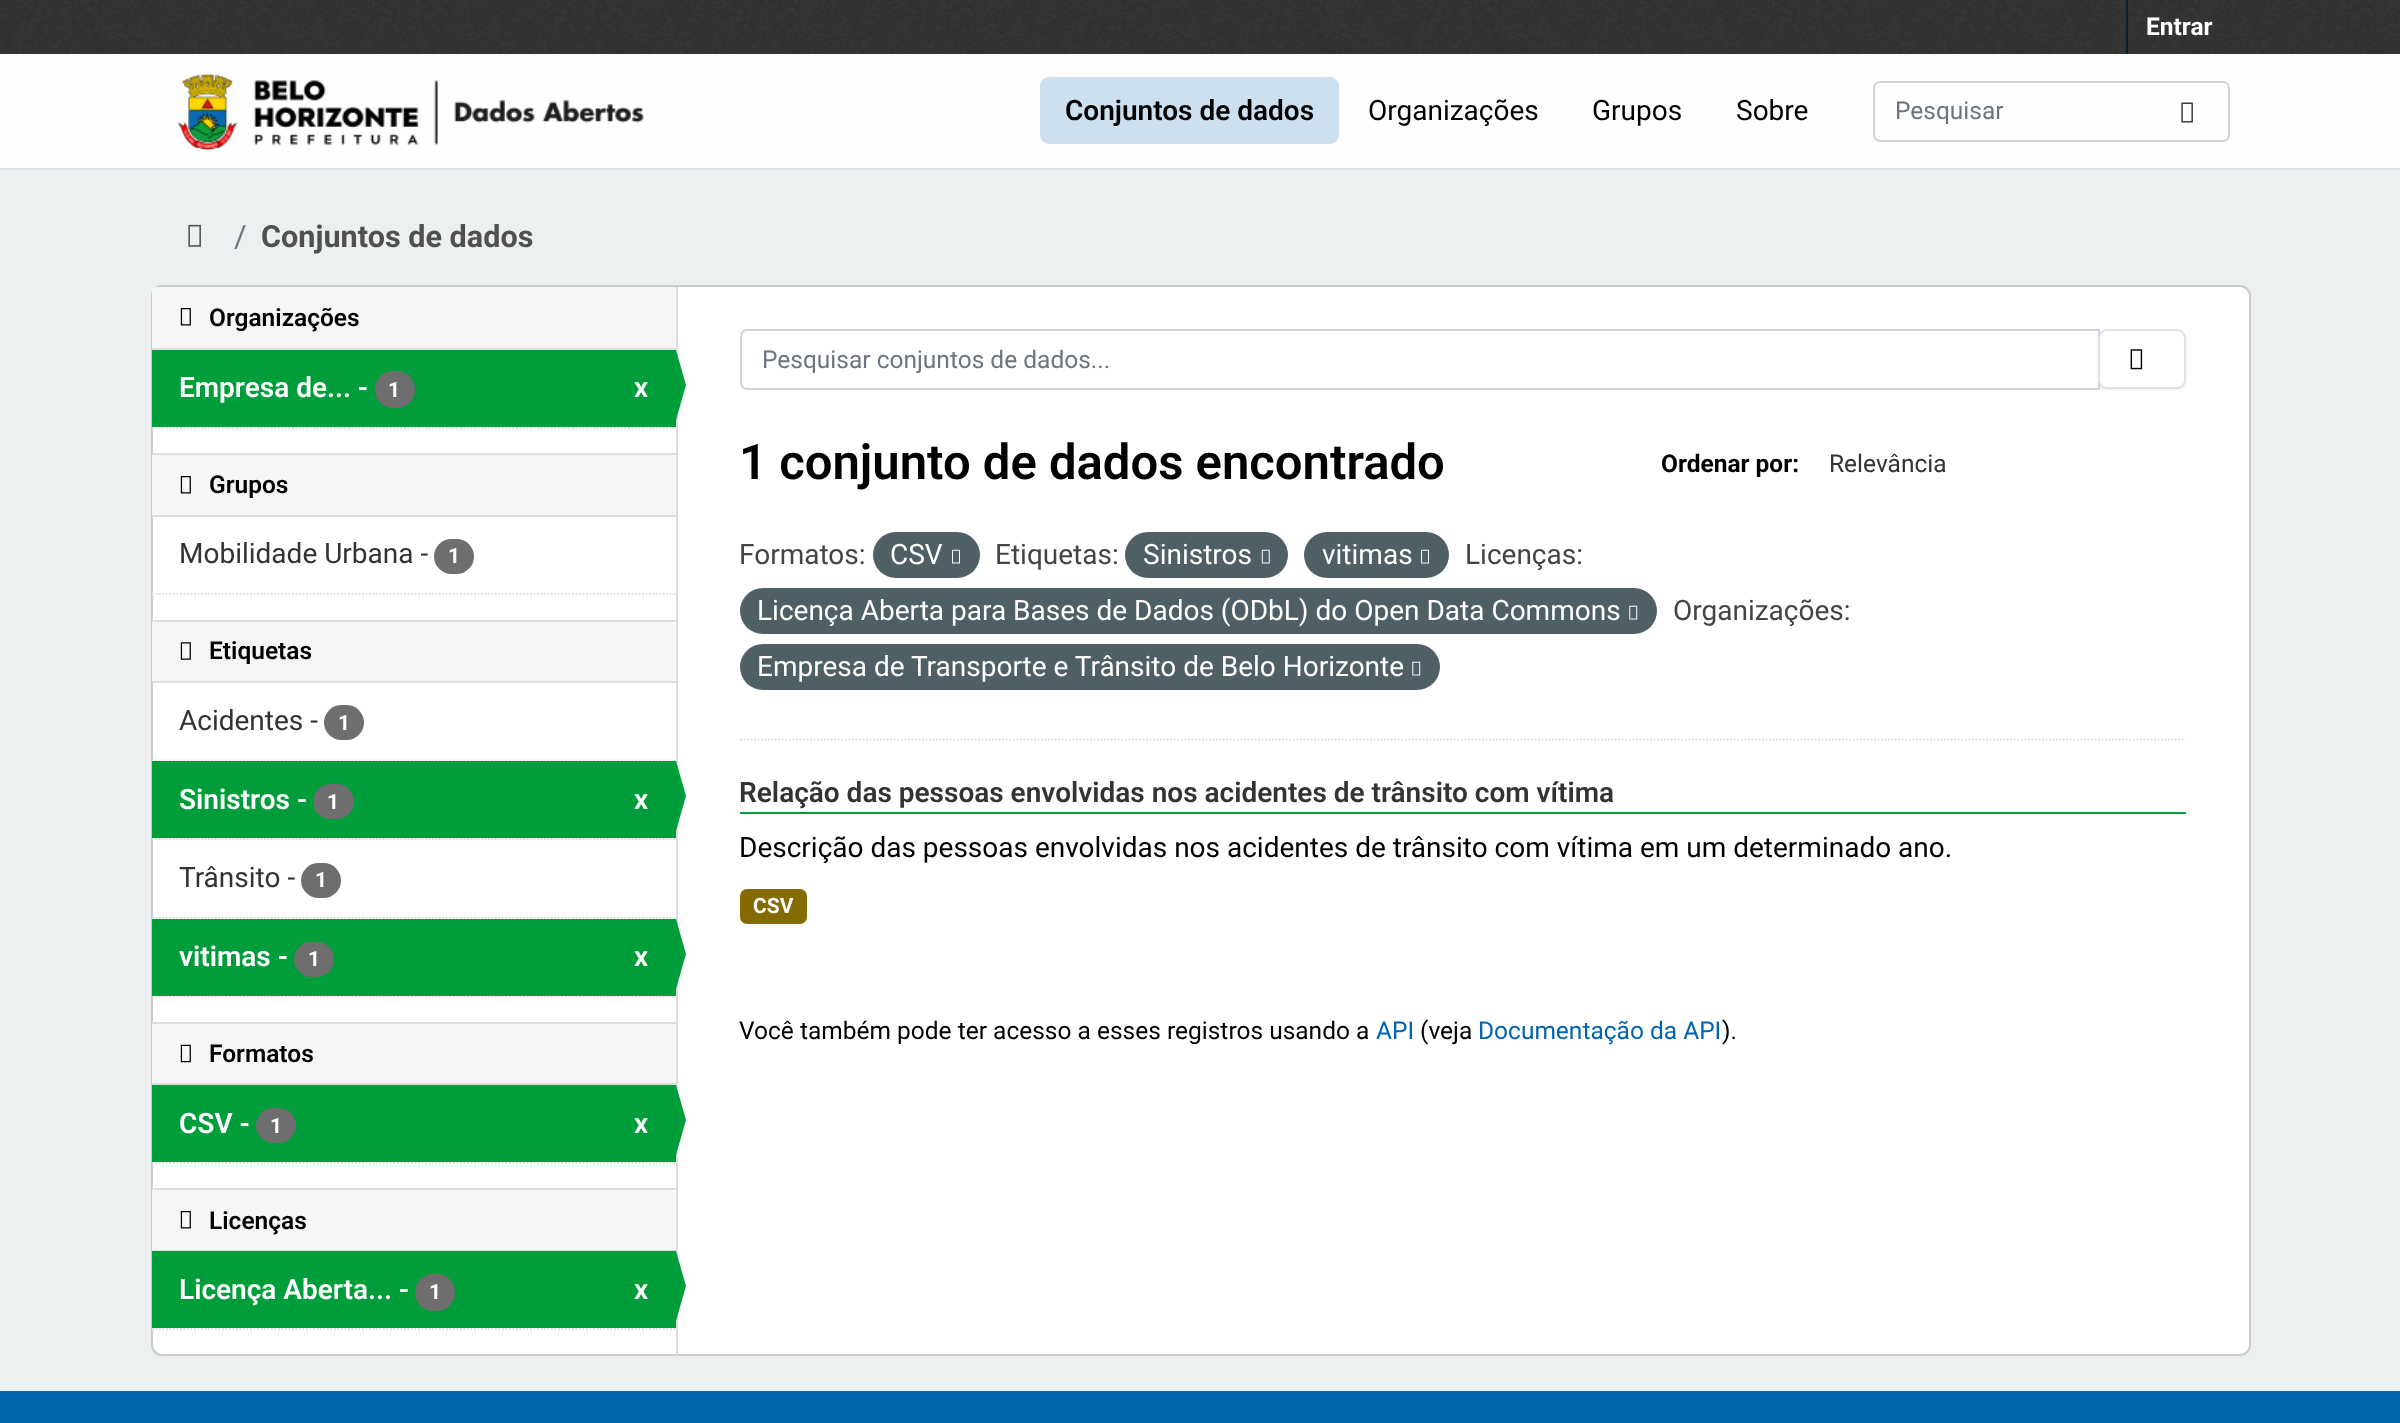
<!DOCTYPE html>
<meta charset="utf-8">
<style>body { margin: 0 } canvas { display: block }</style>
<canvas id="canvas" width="2400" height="1423"></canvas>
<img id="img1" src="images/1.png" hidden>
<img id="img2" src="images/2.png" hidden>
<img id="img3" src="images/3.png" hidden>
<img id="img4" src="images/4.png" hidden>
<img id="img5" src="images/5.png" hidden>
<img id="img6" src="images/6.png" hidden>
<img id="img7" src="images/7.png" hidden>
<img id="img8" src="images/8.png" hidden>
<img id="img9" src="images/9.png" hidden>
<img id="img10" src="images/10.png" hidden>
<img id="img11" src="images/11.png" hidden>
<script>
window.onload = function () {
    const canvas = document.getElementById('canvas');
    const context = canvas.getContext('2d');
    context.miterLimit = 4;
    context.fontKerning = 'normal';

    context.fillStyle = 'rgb(236, 240, 241)';
    context.fillRect(0, 0, 2400, 1423);
    context.fillStyle = 'rgb(51, 51, 51)';
    context.fillRect(0, 0, 2400, 54);
    context.drawImage(document.getElementById('img1'), 0, 0, 2399, 54);
    context.fillStyle = 'rgb(0, 35, 46)';
    context.fillRect(2126, 0, 2, 54);
    context.fillStyle = 'rgb(254, 254, 254)';
    context.fillRect(0, 54, 2400, 114);
    context.fillStyle = 'rgb(222, 226, 230)';
    context.fillRect(0, 168, 2400, 2);
    context.drawImage(document.getElementById('img2'), 177, 73, 467, 78);
    context.fillStyle = 'rgb(204, 224, 239)';
    context.beginPath();
    context.roundRect(1040, 77, 299, 67, 9);
    context.fill();
    context.beginPath();
    context.roundRect(1874, 82, 355, 59, 6);
    context.strokeStyle = 'rgb(206, 212, 218)';
    context.lineWidth = 2;
    context.stroke();
    context.drawImage(document.getElementById('img3'), 2181, 102, 12, 21);
    context.drawImage(document.getElementById('img4'), 188, 224, 13, 23);
    context.fillStyle = 'rgb(255, 255, 255)';
    context.beginPath();
    context.roundRect(152, 286, 2098, 1069, 10);
    context.fill();
    context.strokeStyle = 'rgb(204, 204, 204)';
    context.stroke();
    context.fillStyle = 'rgb(246, 246, 246)';
    context.beginPath();
    context.roundRect(152, 287, 524, 63, [5, 0, 0, 0]);
    context.fill();
    context.fillStyle = 'rgb(221, 221, 221)';
    context.fillRect(152, 348, 524, 2);
    context.drawImage(document.getElementById('img5'), 180, 308, 11, 18);
    context.fillStyle = 'rgb(0, 158, 59)';
    context.fillRect(152, 350, 524, 77);
    context.fillStyle = 'rgb(110, 110, 110)';
    context.beginPath();
    context.roundRect(375, 371, 40, 37, 18);
    context.fill();
    context.fillStyle = 'rgb(221, 221, 221)';
    context.fillRect(676, 287, 2, 1068);
    context.fillStyle = 'rgb(0, 158, 59)';
    context.beginPath();
    context.moveTo(676, 420);
    context.lineTo(676, 350);
    context.lineTo(686, 385);
    context.closePath();
    context.fill();
    context.beginPath();
    context.moveTo(152, 428);
    context.lineTo(675.5, 428);
    context.strokeStyle = 'rgb(221, 221, 221)';
    context.lineWidth = 1.8;
    context.setLineDash([1.75, 1.75]);
    context.stroke();
    context.fillStyle = 'rgb(246, 246, 246)';
    context.fillRect(152, 455, 524, 60);
    context.fillStyle = 'rgb(221, 221, 221)';
    context.fillRect(152, 453, 524, 2);
    context.fillRect(152, 515, 524, 2);
    context.drawImage(document.getElementById('img5'), 180, 476, 11, 18);
    context.fillStyle = 'rgb(110, 110, 110)';
    context.beginPath();
    context.roundRect(434, 539, 40, 35, 17.5);
    context.fill();
    context.beginPath();
    context.moveTo(152, 594);
    context.lineTo(675.5, 594);
    context.stroke();
    context.fillStyle = 'rgb(246, 246, 246)';
    context.fillRect(152, 622, 524, 59);
    context.fillStyle = 'rgb(221, 221, 221)';
    context.fillRect(152, 620, 524, 2);
    context.fillRect(152, 681, 524, 2);
    context.drawImage(document.getElementById('img6'), 180, 642, 11, 18);
    context.beginPath();
    context.moveTo(152, 760.5);
    context.lineTo(675.5, 760.5);
    context.stroke();
    context.fillStyle = 'rgb(110, 110, 110)';
    context.beginPath();
    context.roundRect(324, 705, 40, 35, 17.5);
    context.fill();
    context.fillStyle = 'rgb(246, 246, 246)';
    context.fillRect(152, 838, 524, 2);
    context.beginPath();
    context.moveTo(152, 839);
    context.lineTo(675.5, 839);
    context.stroke();
    context.fillStyle = 'rgb(0, 158, 59)';
    context.fillRect(152, 761, 524, 77);
    context.fillStyle = 'rgb(110, 110, 110)';
    context.beginPath();
    context.roundRect(313, 784, 41, 35, 17.5);
    context.fill();
    context.fillStyle = 'rgb(0, 158, 59)';
    context.beginPath();
    context.moveTo(676, 831);
    context.lineTo(676, 761);
    context.lineTo(686, 796);
    context.closePath();
    context.fill();
    context.beginPath();
    context.moveTo(152, 918);
    context.lineTo(675.5, 918);
    context.stroke();
    context.fillStyle = 'rgb(110, 110, 110)';
    context.beginPath();
    context.roundRect(301, 863, 40, 35, 17.5);
    context.fill();
    context.beginPath();
    context.moveTo(152, 996.5);
    context.lineTo(675.5, 996.5);
    context.stroke();
    context.fillStyle = 'rgb(0, 158, 59)';
    context.fillRect(152, 919, 524, 77);
    context.fillStyle = 'rgb(110, 110, 110)';
    context.beginPath();
    context.roundRect(294, 942, 40, 35, 17.5);
    context.fill();
    context.fillStyle = 'rgb(0, 158, 59)';
    context.beginPath();
    context.moveTo(676, 989);
    context.lineTo(676, 919);
    context.lineTo(686, 954);
    context.closePath();
    context.fill();
    context.fillStyle = 'rgb(246, 246, 246)';
    context.fillRect(152, 1024, 524, 59);
    context.fillStyle = 'rgb(221, 221, 221)';
    context.fillRect(152, 1022, 524, 2);
    context.fillRect(152, 1083, 524, 2);
    context.drawImage(document.getElementById('img7'), 180, 1044, 11, 19);
    context.fillStyle = 'rgb(0, 158, 59)';
    context.fillRect(152, 1085, 524, 77);
    context.fillStyle = 'rgb(110, 110, 110)';
    context.beginPath();
    context.roundRect(256, 1108, 40, 35, 17.5);
    context.fill();
    context.fillStyle = 'rgb(0, 158, 59)';
    context.beginPath();
    context.moveTo(676, 1155);
    context.lineTo(676, 1085);
    context.lineTo(686, 1120);
    context.closePath();
    context.fill();
    context.beginPath();
    context.moveTo(152, 1163);
    context.lineTo(675.5, 1163);
    context.stroke();
    context.fillStyle = 'rgb(246, 246, 246)';
    context.fillRect(152, 1190, 524, 60);
    context.fillStyle = 'rgb(221, 221, 221)';
    context.fillRect(152, 1188, 524, 2);
    context.fillRect(152, 1250, 524, 1);
    context.drawImage(document.getElementById('img5'), 180, 1211, 11, 18);
    context.fillStyle = 'rgb(0, 158, 59)';
    context.fillRect(152, 1251, 524, 77);
    context.fillStyle = 'rgb(110, 110, 110)';
    context.beginPath();
    context.roundRect(415, 1274, 40, 37, 18);
    context.fill();
    context.fillStyle = 'rgb(0, 158, 59)';
    context.beginPath();
    context.moveTo(676, 1321);
    context.lineTo(676, 1251);
    context.lineTo(686, 1286);
    context.closePath();
    context.fill();
    context.beginPath();
    context.moveTo(152, 1329);
    context.lineTo(675.5, 1329);
    context.stroke();
    context.beginPath();
    context.moveTo(740, 739.5);
    context.lineTo(2186, 739.5);
    context.stroke();
    context.beginPath();
    context.roundRect(741, 330, 1358, 59, [6, 0, 0, 6]);
    context.strokeStyle = 'rgb(206, 212, 218)';
    context.lineWidth = 2;
    context.setLineDash([]);
    context.stroke();
    context.fillStyle = 'rgba(0, 0, 0, 0.07)';
    context.filter = 'blur(1px)';
    context.beginPath();
    context.roundRect(2098, 331, 88, 59, 9);
    context.fill();
    context.filter = 'none';
    context.fillStyle = 'rgb(255, 255, 255)';
    context.beginPath();
    context.roundRect(2099, 330, 86, 58, 8);
    context.fill();
    context.strokeStyle = 'rgb(222, 226, 230)';
    context.stroke();
    context.drawImage(document.getElementById('img8'), 2130, 349, 13, 21);
    context.fillStyle = 'rgb(78, 95, 101)';
    context.beginPath();
    context.roundRect(873, 532, 107, 46, 23);
    context.fill();
    context.drawImage(document.getElementById('img9'), 952, 549, 8, 15);
    context.beginPath();
    context.roundRect(1125, 532, 163, 46, 23);
    context.fill();
    context.drawImage(document.getElementById('img10'), 1261, 549, 9, 15);
    context.beginPath();
    context.roundRect(1304, 532, 145, 46, 23);
    context.fill();
    context.drawImage(document.getElementById('img9'), 1421, 549, 8, 15);
    context.beginPath();
    context.roundRect(740, 588, 917, 46, 23);
    context.fill();
    context.drawImage(document.getElementById('img11'), 1629, 605, 9, 15);
    context.beginPath();
    context.roundRect(740, 644, 700, 46, 23);
    context.fill();
    context.drawImage(document.getElementById('img11'), 1412, 661, 9, 15);
    context.fillStyle = 'rgb(0, 158, 59)';
    context.fillRect(740, 812, 1446, 2);
    context.fillStyle = 'rgb(133, 106, 0)';
    context.beginPath();
    context.roundRect(740, 889, 67, 35, 7);
    context.fill();
    context.fillStyle = 'rgb(0, 101, 175)';
    context.fillRect(0, 1391, 2400, 32);
    context.font = 'bold 24.5px Roboto';
    context.fillStyle = 'rgb(255, 255, 255)';
    context.fillText('Entrar', 2146, 35);
    context.font = '600 28px Roboto';
    context.fillStyle = 'rgb(0, 0, 0)';
    context.fillText('Conjuntos de dados', 1065, 120);
    context.font = '28px Roboto';
    context.fillText('Organizações', 1368, 120);
    context.fillText('Grupos', 1592, 120);
    context.fillText('Sobre', 1736, 120);
    context.font = '24.5px Roboto';
    context.fillStyle = 'rgb(108, 117, 125)';
    context.fillText('Pesquisar', 1895, 119);
    context.font = '30.6px Roboto';
    context.fillText('/', 234, 247);
    context.font = 'bold 30.6px Roboto';
    context.fillStyle = 'rgb(80, 80, 80)';
    context.fillText('Conjuntos de dados', 261, 247);
    context.font = '600 24.5px Roboto';
    context.fillStyle = 'rgb(0, 0, 0)';
    context.fillText('Organizações', 209, 326);
    context.font = '600 28px Roboto';
    context.fillStyle = 'rgb(255, 255, 255)';
    context.fillText('Empresa de... -', 179, 397);
    context.font = 'bold 21px Roboto';
    context.fillText('1', 388, 397);
    context.font = '600 28px Roboto';
    context.fillText('x', 634, 397);
    context.font = '600 24.5px Roboto';
    context.fillStyle = 'rgb(0, 0, 0)';
    context.fillText('Grupos', 209, 493);
    context.font = '28px Roboto';
    context.fillStyle = 'rgb(51, 51, 51)';
    context.fillText('Mobilidade Urbana -', 179, 563);
    context.font = 'bold 21px Roboto';
    context.fillStyle = 'rgb(255, 255, 255)';
    context.fillText('1', 448, 563);
    context.font = '600 24.5px Roboto';
    context.fillStyle = 'rgb(0, 0, 0)';
    context.fillText('Etiquetas', 209, 659);
    context.font = '28px Roboto';
    context.fillStyle = 'rgb(51, 51, 51)';
    context.fillText('Acidentes -', 179, 730);
    context.font = 'bold 21px Roboto';
    context.fillStyle = 'rgb(255, 255, 255)';
    context.fillText('1', 338, 730);
    context.font = '600 28px Roboto';
    context.fillText('Sinistros -', 179, 809);
    context.font = 'bold 21px Roboto';
    context.fillText('1', 327, 809);
    context.font = '600 28px Roboto';
    context.fillText('x', 634, 809);
    context.font = '28px Roboto';
    context.fillStyle = 'rgb(51, 51, 51)';
    context.fillText('Trânsito -', 179, 887);
    context.font = 'bold 21px Roboto';
    context.fillStyle = 'rgb(255, 255, 255)';
    context.fillText('1', 315, 887);
    context.font = '600 28px Roboto';
    context.fillText('vitimas -', 179, 966);
    context.font = 'bold 21px Roboto';
    context.fillText('1', 308, 966);
    context.font = '600 28px Roboto';
    context.fillText('x', 634, 966);
    context.font = '600 24.5px Roboto';
    context.fillStyle = 'rgb(0, 0, 0)';
    context.fillText('Formatos', 209, 1062);
    context.font = '600 28px Roboto';
    context.fillStyle = 'rgb(255, 255, 255)';
    context.fillText('CSV -', 179, 1133);
    context.font = 'bold 21px Roboto';
    context.fillText('1', 270, 1133);
    context.font = '600 28px Roboto';
    context.fillText('x', 634, 1133);
    context.font = '600 24.5px Roboto';
    context.fillStyle = 'rgb(0, 0, 0)';
    context.fillText('Licenças', 209, 1229);
    context.font = '600 28px Roboto';
    context.fillStyle = 'rgb(255, 255, 255)';
    context.fillText('Licença Aberta... -', 179, 1299);
    context.font = 'bold 21px Roboto';
    context.fillText('1', 429, 1299);
    context.font = '600 28px Roboto';
    context.fillText('x', 634, 1299);
    context.save();
    context.beginPath();
    context.rect(763, 345, 1314, 28);
    context.clip();
    context.font = '24.5px Roboto';
    context.fillStyle = 'rgb(108, 117, 125)';
    context.fillText('Pesquisar conjuntos de dados...', 762, 368);
    context.restore();
    context.font = '600 49px Roboto';
    context.fillStyle = 'rgb(0, 0, 0)';
    context.fillText('1 conjunto de dados encontrado', 739, 479);
    context.font = 'bold 24.5px Roboto';
    context.fillText('Ordenar por:', 1661, 472);
    context.font = '24.5px Roboto';
    context.fillStyle = 'rgb(51, 51, 51)';
    context.fillText('Relevância', 1829, 472);
    context.font = '28px Roboto';
    context.fillStyle = 'rgb(68, 68, 68)';
    context.fillText('Formatos:', 739, 564);
    context.fillStyle = 'rgb(255, 255, 255)';
    context.fillText('CSV', 890, 564);
    context.fillStyle = 'rgb(68, 68, 68)';
    context.fillText('Etiquetas:', 995, 564);
    context.fillStyle = 'rgb(255, 255, 255)';
    context.fillText('Sinistros', 1143, 564);
    context.fillText('vitimas', 1322, 564);
    context.fillStyle = 'rgb(68, 68, 68)';
    context.fillText('Licenças:', 1465, 564);
    context.fillStyle = 'rgb(255, 255, 255)';
    context.fillText('Licença Aberta para Bases de Dados (ODbL) do Open Data Commons', 757, 620);
    context.fillStyle = 'rgb(68, 68, 68)';
    context.fillText('Organizações:', 1673, 620);
    context.fillStyle = 'rgb(255, 255, 255)';
    context.fillText('Empresa de Transporte e Trânsito de Belo Horizonte', 757, 676);
    context.font = '600 28px Roboto';
    context.fillStyle = 'rgb(51, 51, 51)';
    context.fillText('Relação das pessoas envolvidas nos acidentes de trânsito com vítima', 739, 802);
    context.font = '28px Roboto';
    context.fillStyle = 'rgb(0, 0, 0)';
    context.fillText('Descrição das pessoas envolvidas nos acidentes de trânsito com vítima em um determinado ano.', 739, 857);
    context.font = 'bold 21px Roboto';
    context.fillStyle = 'rgb(255, 255, 255)';
    context.fillText('CSV', 753, 913);
    context.font = '24.5px Roboto';
    context.fillStyle = 'rgb(0, 0, 0)';
    context.fillText('Você também pode ter acesso a esses registros usando a', 739, 1039);
    context.fillStyle = 'rgb(0, 101, 175)';
    context.fillText('API', 1376, 1039);
    context.fillStyle = 'rgb(0, 0, 0)';
    context.fillText('(veja', 1420, 1039);
    context.fillStyle = 'rgb(0, 101, 175)';
    context.fillText('Documentação da API', 1478, 1039);
    context.fillStyle = 'rgb(0, 0, 0)';
    context.fillText(').', 1722, 1039);
};
</script>
